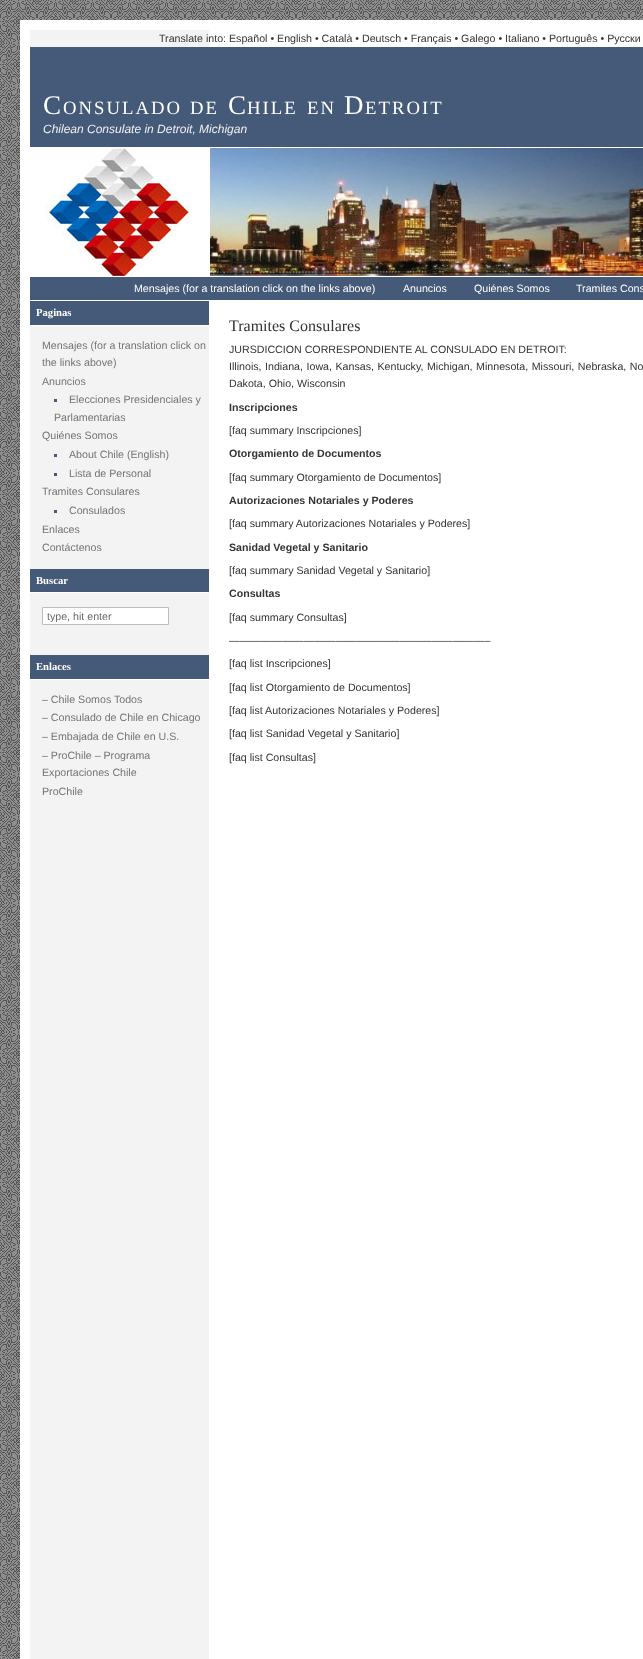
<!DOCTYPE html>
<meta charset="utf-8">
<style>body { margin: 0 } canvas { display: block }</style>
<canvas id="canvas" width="643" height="1659"></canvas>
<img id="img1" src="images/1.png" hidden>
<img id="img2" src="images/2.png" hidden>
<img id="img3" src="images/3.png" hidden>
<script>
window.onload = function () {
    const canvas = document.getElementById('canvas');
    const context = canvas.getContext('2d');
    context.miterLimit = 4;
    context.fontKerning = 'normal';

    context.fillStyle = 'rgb(255, 255, 255)';
    context.fillRect(0, 0, 643, 1659);
    context.drawImage(document.getElementById('img1'), 0, 0, 643, 1659);
    context.fillRect(209, 30, 434, 1629);
    context.fillStyle = 'rgb(243, 243, 243)';
    context.fillRect(30, 30, 179, 1629);
    context.strokeStyle = 'rgb(255, 255, 255)';
    context.lineWidth = 10;
    context.strokeRect(25, 25, 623, 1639);
    context.fillStyle = 'rgb(69, 90, 121)';
    context.fillRect(30, 47, 613, 100);
    context.fillStyle = 'rgb(255, 255, 255)';
    context.fillRect(30, 147, 179, 1);
    context.drawImage(document.getElementById('img2'), 30, 148, 179, 128);
    context.fillRect(30, 276, 179, 1);
    context.drawImage(document.getElementById('img3'), 210, 148, 433, 128);
    context.fillStyle = 'rgb(69, 90, 121)';
    context.fillRect(30, 277, 613, 23);
    context.fillStyle = 'rgb(255, 255, 255)';
    context.fillRect(30, 300, 179, 1);
    context.fillStyle = 'rgb(69, 90, 121)';
    context.fillRect(30, 301, 179, 24);
    context.fillStyle = 'rgb(255, 255, 255)';
    context.fillRect(30, 325, 179, 1);
    context.fillStyle = 'rgb(69, 90, 121)';
    context.fillRect(54, 399, 3, 3);
    context.fillRect(54, 454, 3, 3);
    context.fillRect(54, 473, 3, 3);
    context.fillRect(54, 510, 3, 3);
    context.fillRect(30, 569, 179, 23);
    context.fillStyle = 'rgb(255, 255, 255)';
    context.fillRect(30, 592, 179, 1);
    context.beginPath();
    context.rect(42.5, 607.5, 126, 17);
    context.fill();
    context.strokeStyle = 'rgb(188, 188, 188)';
    context.lineWidth = 1;
    context.stroke();
    context.fillStyle = 'rgb(69, 90, 121)';
    context.fillRect(30, 655, 179, 24);
    context.fillStyle = 'rgb(255, 255, 255)';
    context.fillRect(30, 679, 179, 1);
    context.font = '10.65px Liberation Sans';
    context.fillStyle = 'rgb(51, 51, 51)';
    context.fillText('Translate into: Español • English • Català • Deutsch • Français • Galego • Italiano • Português • Русски', 159, 42);
    context.letterSpacing = '2px';
    context.font = '27px Liberation Serif';
    context.fillStyle = 'rgb(255, 255, 255)';
    context.fillText('C', 43, 114);
    context.font = '18.75px Liberation Serif';
    context.fillText('ONSULADO', 63, 114);
    context.fillText('DE', 190, 114);
    context.font = '27px Liberation Serif';
    context.fillText('C', 228, 114);
    context.font = '18.75px Liberation Serif';
    context.fillText('HILE', 247, 114);
    context.fillText('EN', 307, 114);
    context.font = '27px Liberation Serif';
    context.fillText('D', 344, 114);
    context.font = '18.75px Liberation Serif';
    context.fillText('ETROIT', 365, 114);
    context.letterSpacing = '0px';
    context.font = 'italic 12px Liberation Sans';
    context.fillStyle = 'rgb(240, 240, 240)';
    context.fillText('Chilean Consulate in Detroit, Michigan', 43, 133);
    context.font = '10.65px Liberation Sans';
    context.fillStyle = 'rgb(255, 255, 255)';
    context.fillText('Mensajes (for a translation click on the links above)', 134, 292);
    context.fillText('Anuncios', 403, 292);
    context.fillText('Quiénes Somos', 474, 292);
    context.fillText('Tramites Cons', 576, 292);
    context.font = 'bold 10.65px Liberation Serif';
    context.fillText('Paginas', 36, 316);
    context.font = '10.65px Liberation Sans';
    context.fillStyle = 'rgb(116, 116, 116)';
    context.fillText('Mensajes (for a translation click on', 42, 349);
    context.fillText('the links above)', 42, 366);
    context.fillText('Anuncios', 42, 385);
    context.fillText('Elecciones Presidenciales y', 69, 403);
    context.fillText('Parlamentarias', 54, 421);
    context.fillText('Quiénes Somos', 42, 439);
    context.fillText('About Chile (English)', 69, 458);
    context.fillText('Lista de Personal', 69, 477);
    context.fillText('Tramites Consulares', 42, 495);
    context.fillText('Consulados', 69, 514);
    context.fillText('Enlaces', 42, 533);
    context.fillText('Contáctenos', 42, 551);
    context.font = 'bold 10.65px Liberation Serif';
    context.fillStyle = 'rgb(255, 255, 255)';
    context.fillText('Buscar', 36, 584);
    context.save();
    context.beginPath();
    context.rect(47, 610, 119, 12);
    context.clip();
    context.font = '10.65px Liberation Sans';
    context.fillStyle = 'rgb(106, 106, 106)';
    context.fillText('type, hit enter', 47, 620);
    context.restore();
    context.fillText('Enlaces', 36, 670);
    context.font = '10.65px Liberation Sans';
    context.fillStyle = 'rgb(116, 116, 116)';
    context.fillText('– Chile Somos Todos', 42, 703);
    context.fillText('– Consulado de Chile en Chicago', 42, 721);
    context.fillText('– Embajada de Chile en U.S.', 42, 740);
    context.fillText('– ProChile – Programa', 42, 759);
    context.fillText('Exportaciones Chile', 42, 776);
    context.fillText('ProChile', 42, 795);
    context.font = '16px Liberation Serif';
    context.fillStyle = 'rgb(51, 51, 51)';
    context.fillText('Tramites Consulares', 229, 331);
    context.font = '10.65px Liberation Sans';
    context.fillText('JURSDICCION CORRESPONDIENTE AL CONSULADO EN DETROIT:', 229, 353);
    context.wordSpacing = '0.6px';
    context.fillText('Illinois, Indiana, Iowa, Kansas, Kentucky, Michigan, Minnesota, Missouri, Nebraska, No', 229, 370);
    context.wordSpacing = '0px';
    context.fillText('Dakota, Ohio, Wisconsin', 229, 387);
    context.font = 'bold 10.65px Liberation Sans';
    context.fillText('Inscripciones', 229, 411);
    context.font = '10.65px Liberation Sans';
    context.fillText('[faq summary Inscripciones]', 229, 434);
    context.font = 'bold 10.65px Liberation Sans';
    context.fillText('Otorgamiento de Documentos', 229, 457);
    context.font = '10.65px Liberation Sans';
    context.fillText('[faq summary Otorgamiento de Documentos]', 229, 481);
    context.font = 'bold 10.65px Liberation Sans';
    context.fillText('Autorizaciones Notariales y Poderes', 229, 504);
    context.font = '10.65px Liberation Sans';
    context.fillText('[faq summary Autorizaciones Notariales y Poderes]', 229, 527);
    context.font = 'bold 10.65px Liberation Sans';
    context.fillText('Sanidad Vegetal y Sanitario', 229, 551);
    context.font = '10.65px Liberation Sans';
    context.fillText('[faq summary Sanidad Vegetal y Sanitario]', 229, 574);
    context.font = 'bold 10.65px Liberation Sans';
    context.fillText('Consultas', 229, 597);
    context.font = '10.65px Liberation Sans';
    context.fillText('[faq summary Consultas]', 229, 621);
    context.fillText('————————————————————————–', 229, 644);
    context.fillText('[faq list Inscripciones]', 229, 667);
    context.fillText('[faq list Otorgamiento de Documentos]', 229, 691);
    context.fillText('[faq list Autorizaciones Notariales y Poderes]', 229, 714);
    context.fillText('[faq list Sanidad Vegetal y Sanitario]', 229, 737);
    context.fillText('[faq list Consultas]', 229, 761);
};
</script>
